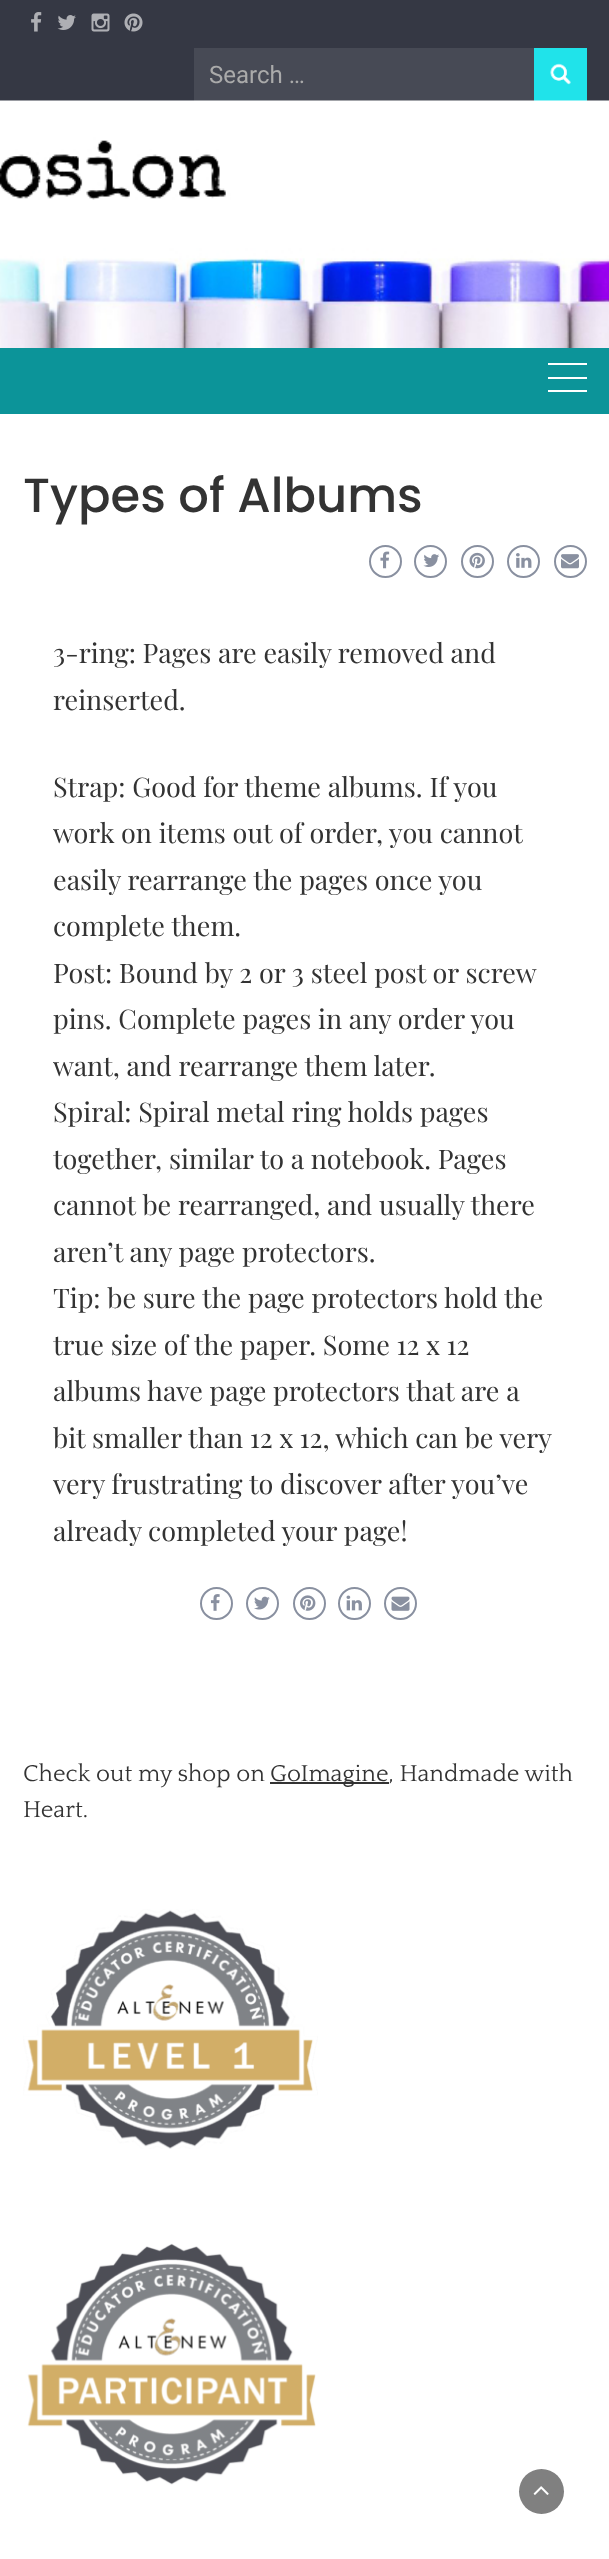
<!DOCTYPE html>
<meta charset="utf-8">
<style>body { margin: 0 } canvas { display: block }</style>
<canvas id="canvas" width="609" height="2559"></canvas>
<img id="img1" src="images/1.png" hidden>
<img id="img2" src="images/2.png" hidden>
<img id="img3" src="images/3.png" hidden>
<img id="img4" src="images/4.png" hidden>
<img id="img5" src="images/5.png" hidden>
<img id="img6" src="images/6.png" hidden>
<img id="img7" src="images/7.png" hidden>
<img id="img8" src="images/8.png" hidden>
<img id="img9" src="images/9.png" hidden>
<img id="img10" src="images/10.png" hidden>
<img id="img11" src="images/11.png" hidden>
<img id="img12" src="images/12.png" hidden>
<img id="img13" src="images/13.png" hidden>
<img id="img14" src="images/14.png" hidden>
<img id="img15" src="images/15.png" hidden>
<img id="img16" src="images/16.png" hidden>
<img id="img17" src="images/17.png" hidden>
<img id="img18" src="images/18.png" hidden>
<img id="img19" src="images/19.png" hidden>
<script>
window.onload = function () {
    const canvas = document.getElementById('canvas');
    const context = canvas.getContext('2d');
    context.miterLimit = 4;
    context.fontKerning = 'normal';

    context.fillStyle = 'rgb(255, 255, 255)';
    context.fillRect(0, 0, 609, 2559);
    context.fillStyle = 'rgb(53, 56, 68)';
    context.fillRect(0, 0, 609, 101);
    context.drawImage(document.getElementById('img1'), 31, 12, 11, 20);
    context.drawImage(document.getElementById('img2'), 57, 15, 19, 15);
    context.drawImage(document.getElementById('img3'), 91, 13, 19, 19);
    context.drawImage(document.getElementById('img4'), 124, 13, 19, 19);
    context.fillStyle = 'rgb(71, 74, 85)';
    context.fillRect(194, 48, 340, 53);
    context.fillStyle = 'rgb(32, 227, 234)';
    context.fillRect(534, 48, 53, 53);
    context.drawImage(document.getElementById('img5'), 550, 63, 21, 22);
    context.drawImage(document.getElementById('img6'), 0, 100, 609, 248);
    context.fillStyle = 'rgb(12, 148, 153)';
    context.fillRect(0, 348, 609, 66);
    context.fillStyle = 'rgb(255, 255, 255)';
    context.fillRect(548, 363, 39, 2);
    context.fillRect(548, 377, 39, 2);
    context.fillRect(548, 390, 39, 2);
    context.beginPath();
    context.arc(385.5, 561.5, 15.5, 0, 2 * Math.PI);
    context.strokeStyle = 'rgb(137, 144, 160)';
    context.lineWidth = 2;
    context.stroke();
    context.drawImage(document.getElementById('img7'), 380, 551, 10, 18);
    context.beginPath();
    context.arc(430.5, 561.5, 15.5, 0, 2 * Math.PI);
    context.stroke();
    context.drawImage(document.getElementById('img8'), 423, 554, 17, 13);
    context.beginPath();
    context.arc(477.5, 561.5, 15.5, 0, 2 * Math.PI);
    context.stroke();
    context.drawImage(document.getElementById('img9'), 469, 552, 16, 17);
    context.beginPath();
    context.arc(523.5, 561.5, 15.5, 0, 2 * Math.PI);
    context.stroke();
    context.drawImage(document.getElementById('img10'), 516, 553, 16, 15);
    context.beginPath();
    context.arc(570.5, 561.5, 15.5, 0, 2 * Math.PI);
    context.stroke();
    context.drawImage(document.getElementById('img11'), 561, 554, 18, 15);
    context.beginPath();
    context.arc(216.5, 1603.5, 15.5, 0, 2 * Math.PI);
    context.stroke();
    context.drawImage(document.getElementById('img12'), 210, 1594, 10, 17);
    context.beginPath();
    context.arc(262.5, 1603.5, 15.5, 0, 2 * Math.PI);
    context.stroke();
    context.drawImage(document.getElementById('img13'), 254, 1596, 16, 14);
    context.beginPath();
    context.arc(309.5, 1603.5, 15.5, 0, 2 * Math.PI);
    context.stroke();
    context.drawImage(document.getElementById('img14'), 300, 1595, 16, 16);
    context.beginPath();
    context.arc(354.5, 1603.5, 15.5, 0, 2 * Math.PI);
    context.stroke();
    context.drawImage(document.getElementById('img15'), 346, 1595, 16, 16);
    context.beginPath();
    context.arc(400.5, 1603.5, 15.5, 0, 2 * Math.PI);
    context.stroke();
    context.drawImage(document.getElementById('img16'), 391, 1596, 19, 15);
    context.fillStyle = 'rgb(51, 51, 51)';
    context.fillRect(270, 1782, 119, 2);
    context.drawImage(document.getElementById('img17'), 23, 1909, 295, 240);
    context.drawImage(document.getElementById('img18'), 27, 2243, 289, 242);
    context.fillStyle = 'rgb(128, 128, 128)';
    context.beginPath();
    context.arc(541.5, 2491.5, 22.5, 0, 2 * Math.PI);
    context.fill();
    context.drawImage(document.getElementById('img19'), 533, 2486, 16, 9);
    context.font = '24px Roboto';
    context.fillStyle = 'rgb(170, 170, 170)';
    context.fillText('Search …', 209, 83);
    context.font = '500 48px Poppins';
    context.fillStyle = 'rgb(51, 51, 51)';
    context.fillText('Types of Albums', 23, 512);
    context.font = '27px Playfair Display';
    context.fillText('3-ring: Pages are easily removed and', 53, 663);
    context.fillText('reinserted.', 53, 710);
    context.fillText('Strap: Good for theme albums. If you', 53, 797);
    context.fillText('work on items out of order, you cannot', 53, 843);
    context.fillText('easily rearrange the pages once you', 53, 890);
    context.fillText('complete them.', 53, 936);
    context.fillText('Post: Bound by 2 or 3 steel post or screw', 53, 983);
    context.fillText('pins. Complete pages in any order you', 53, 1029);
    context.fillText('want, and rearrange them later.', 53, 1076);
    context.fillText('Spiral: Spiral metal ring holds pages', 53, 1122);
    context.fillText('together, similar to a notebook. Pages', 53, 1169);
    context.fillText('cannot be rearranged, and usually there', 53, 1215);
    context.fillText('aren’t any page protectors.', 53, 1262);
    context.fillText('Tip: be sure the page protectors hold the', 53, 1308);
    context.fillText('true size of the paper. Some 12 x 12', 53, 1355);
    context.fillText('albums have page protectors that are a', 53, 1401);
    context.fillText('bit smaller than 12 x 12, which can be very', 53, 1448);
    context.fillText('very frustrating to discover after you’ve', 53, 1494);
    context.fillText('already completed your page!', 53, 1541);
    context.font = '24px Quattrocento';
    context.fillText('Check out my shop on', 23, 1781);
    context.fillText('GoImagine, Handmade with', 270, 1781);
    context.fillText('Heart.', 23, 1817);
};
</script>
